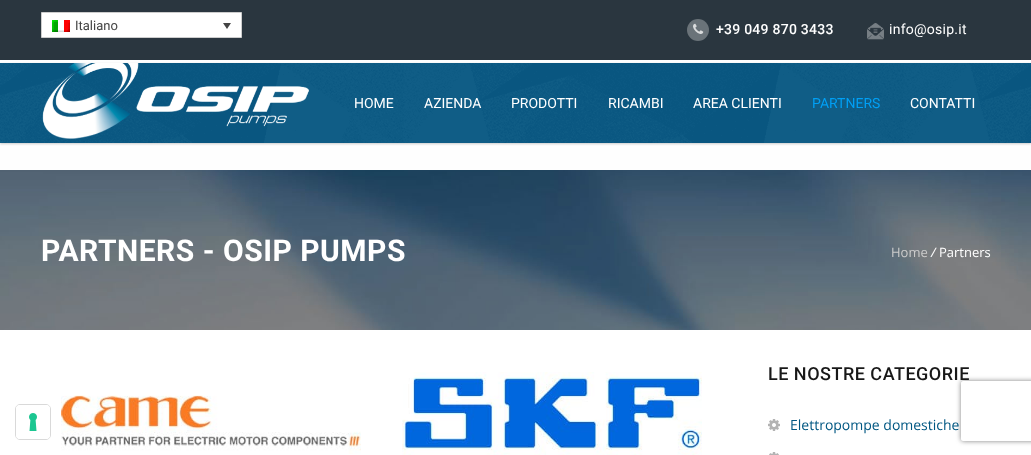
<!DOCTYPE html>
<meta charset="utf-8">
<style>body { margin: 0 } canvas { display: block }</style>
<canvas id="canvas" width="1031" height="455"></canvas>
<img id="img1" src="images/1.png" hidden>
<img id="img2" src="images/2.png" hidden>
<img id="img3" src="images/3.png" hidden>
<img id="img4" src="images/4.png" hidden>
<img id="img5" src="images/5.png" hidden>
<img id="img6" src="images/6.png" hidden>
<img id="img7" src="images/7.png" hidden>
<img id="img8" src="images/8.png" hidden>
<img id="img9" src="images/9.png" hidden>
<img id="img10" src="images/10.png" hidden>
<img id="img11" src="images/11.png" hidden>
<img id="img12" src="images/12.png" hidden>
<script>
window.onload = function () {
    const canvas = document.getElementById('canvas');
    const context = canvas.getContext('2d');
    context.miterLimit = 4;
    context.fontKerning = 'normal';

    context.fillStyle = 'rgb(255, 255, 255)';
    context.fillRect(0, 0, 1031, 455);
    context.drawImage(document.getElementById('img1'), 0, 60, 1031, 110);
    context.beginPath();
    context.roundRect(15.5, 404.5, 35, 35, 4.5);
    context.strokeStyle = 'rgb(217, 217, 217)';
    context.stroke();
    context.beginPath();
    context.roundRect(16, 405, 34, 34, 4);
    context.fill();
    context.drawImage(document.getElementById('img2'), 29, 413, 8, 18);
    context.fillStyle = 'rgb(42, 54, 63)';
    context.fillRect(0, 0, 1031, 60);
    context.fillStyle = 'rgb(255, 255, 255)';
    context.beginPath();
    context.rect(41.5, 12.5, 200, 25);
    context.fill();
    context.strokeStyle = 'rgb(205, 205, 205)';
    context.stroke();
    context.drawImage(document.getElementById('img3'), 52, 20, 18, 12);
    context.fillStyle = 'rgb(68, 68, 68)';
    context.beginPath();
    context.moveTo(223, 23);
    context.lineTo(231, 23);
    context.lineTo(227, 29);
    context.closePath();
    context.fill();
    context.fillStyle = 'rgb(106, 115, 121)';
    context.beginPath();
    context.arc(698, 30, 11, 0, 2 * Math.PI);
    context.fill();
    context.drawImage(document.getElementById('img4'), 693, 23, 11, 11);
    context.drawImage(document.getElementById('img5'), 867, 23, 17, 17);
    context.fillStyle = 'rgba(0, 0, 0, 0.2)';
    context.filter = 'blur(1px)';
    context.beginPath();
    context.rect(0, 64, 1031, 80);
    context.fill();
    context.filter = 'none';
    context.fillStyle = 'rgb(0, 84, 130)';
    context.fillRect(0, 63, 1031, 80);
    context.drawImage(document.getElementById('img6'), 0, 63, 1031, 80);
    context.drawImage(document.getElementById('img7'), 42, 63, 267, 76);
    context.drawImage(document.getElementById('img8'), 0, 170, 1031, 160);
    context.drawImage(document.getElementById('img9'), 61, 395, 300, 59);
    context.drawImage(document.getElementById('img10'), 402, 372, 300, 83);
    context.drawImage(document.getElementById('img11'), 768, 419, 12, 12);
    context.drawImage(document.getElementById('img12'), 769, 452, 10, 3);
    context.save();
    context.beginPath();
    context.moveTo(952, 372);
    context.lineTo(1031, 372);
    context.lineTo(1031, 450);
    context.lineTo(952, 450);
    context.closePath();
    context.moveTo(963, 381);
    context.lineTo(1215, 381);
    context.bezierCurveTo(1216, 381, 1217, 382, 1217, 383);
    context.lineTo(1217, 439);
    context.bezierCurveTo(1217, 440, 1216, 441, 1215, 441);
    context.lineTo(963, 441);
    context.bezierCurveTo(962, 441, 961, 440, 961, 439);
    context.lineTo(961, 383);
    context.bezierCurveTo(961, 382, 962, 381, 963, 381);
    context.closePath();
    context.clip('evenodd');
    context.fillStyle = 'rgb(128, 128, 128)';
    context.filter = 'blur(2.5px)';
    context.beginPath();
    context.roundRect(961, 381, 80, 60, 2);
    context.fill();
    context.filter = 'none';
    context.restore();
    context.font = '13px Roboto';
    context.fillStyle = 'rgb(68, 68, 68)';
    context.fillText('Italiano', 75, 30);
    context.letterSpacing = '0.25px';
    context.font = '500 14px Roboto';
    context.fillStyle = 'rgb(255, 255, 255)';
    context.fillText('+39 049 870 3433', 716, 34);
    context.font = '14px Roboto';
    context.fillText('info@osip.it', 889, 34);
    context.letterSpacing = '0px';
    context.fillText('HOME', 354, 108);
    context.fillText('AZIENDA', 424, 108);
    context.fillText('PRODOTTI', 511, 108);
    context.fillText('RICAMBI', 608, 108);
    context.fillText('AREA CLIENTI', 693, 108);
    context.fillStyle = 'rgb(0, 159, 244)';
    context.fillText('PARTNERS', 812, 108);
    context.fillStyle = 'rgb(255, 255, 255)';
    context.fillText('CONTATTI', 910, 108);
    context.letterSpacing = '0.5px';
    context.font = 'bold 30px Roboto';
    context.fillText('PARTNERS - OSIP PUMPS', 41, 261);
    context.letterSpacing = '0px';
    context.font = '13px Open Sans';
    context.fillStyle = 'rgb(204, 204, 204)';
    context.fillText('Home', 891, 257);
    context.font = 'italic 13px Open Sans';
    context.fillStyle = 'rgb(255, 255, 255)';
    context.fillText('/', 931, 257);
    context.font = '13px Open Sans';
    context.fillText('Partners', 939, 257);
    context.letterSpacing = '0.5px';
    context.font = '500 18px Roboto';
    context.fillStyle = 'rgb(24, 24, 24)';
    context.fillText('LE NOSTRE CATEGORIE', 768, 380);
    context.letterSpacing = '0px';
    context.font = '14px Open Sans';
    context.fillStyle = 'rgb(0, 87, 130)';
    context.fillText('Elettropompe domestiche', 790, 430);
};
</script>
